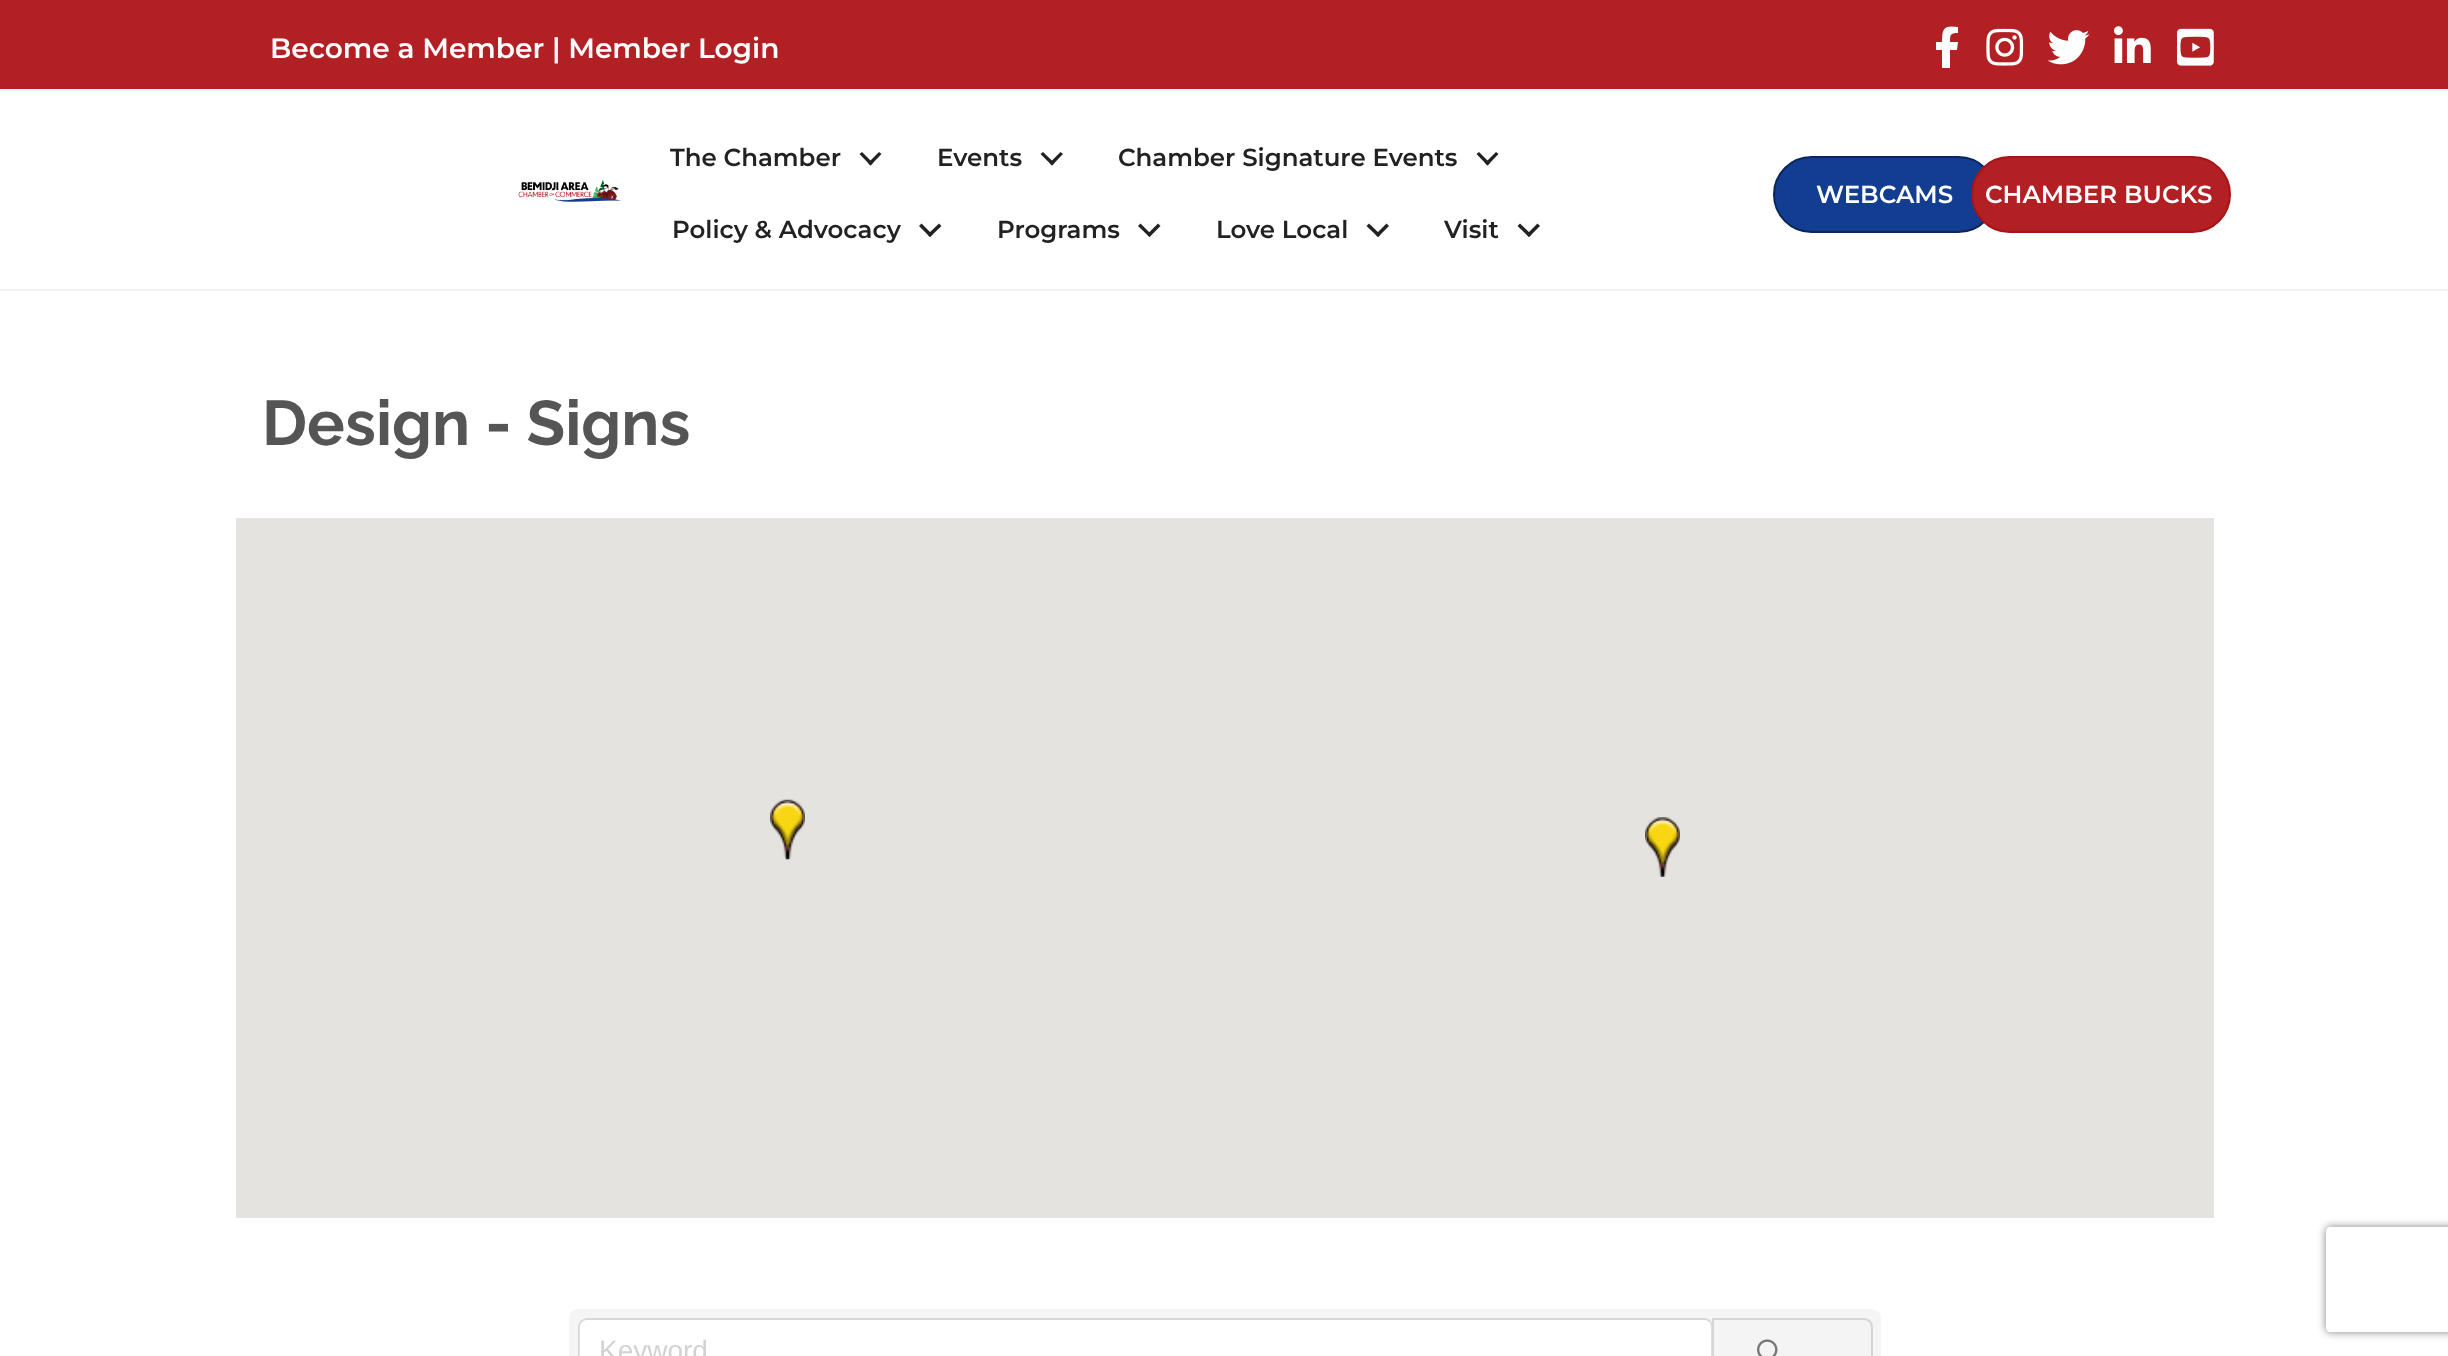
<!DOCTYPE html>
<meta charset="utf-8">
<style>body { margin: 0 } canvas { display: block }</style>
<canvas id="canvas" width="2448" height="1356"></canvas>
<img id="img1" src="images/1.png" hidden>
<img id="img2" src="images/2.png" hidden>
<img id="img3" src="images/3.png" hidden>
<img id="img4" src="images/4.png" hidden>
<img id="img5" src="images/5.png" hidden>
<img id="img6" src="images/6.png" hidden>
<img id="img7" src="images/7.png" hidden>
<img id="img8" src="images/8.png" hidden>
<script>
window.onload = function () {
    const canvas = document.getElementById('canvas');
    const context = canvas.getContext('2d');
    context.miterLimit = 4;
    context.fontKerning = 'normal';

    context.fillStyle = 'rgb(178, 32, 36)';
    context.fillRect(0, 0, 2448, 1356);
    context.fillStyle = 'rgb(255, 255, 255)';
    context.beginPath();
    context.moveTo(1957, 50);
    context.lineTo(1950, 50);
    context.lineTo(1950, 68);
    context.lineTo(1942, 68);
    context.lineTo(1942, 50);
    context.lineTo(1936, 50);
    context.lineTo(1936, 42);
    context.lineTo(1942, 42);
    context.bezierCurveTo(1942, 28, 1944, 25, 1958, 27);
    context.lineTo(1958, 33);
    context.bezierCurveTo(1950, 33, 1950, 35, 1950, 42);
    context.lineTo(1958, 42);
    context.closePath();
    context.fill();
    context.drawImage(document.getElementById('img1'), 1986, 28, 38, 38);
    context.drawImage(document.getElementById('img2'), 2047, 30, 43, 35);
    context.drawImage(document.getElementById('img3'), 2114, 26, 37, 37);
    context.drawImage(document.getElementById('img4'), 2177, 28, 37, 38);
    context.fillRect(0, 91, 2448, 198);
    context.fillStyle = 'rgb(242, 242, 242)';
    context.fillRect(0, 89, 2448, 2);
    context.fillRect(0, 289, 2448, 2);
    context.drawImage(document.getElementById('img5'), 518, 180, 103, 22);
    context.fillStyle = 'rgb(34, 34, 34)';
    context.beginPath();
    context.moveTo(879, 152);
    context.lineTo(881.5, 154);
    context.lineTo(870.5, 165.5);
    context.lineTo(868, 163);
    context.closePath();
    context.fill();
    context.beginPath();
    context.moveTo(862, 152);
    context.lineTo(873, 163);
    context.lineTo(870.5, 165.5);
    context.lineTo(859.5, 154);
    context.closePath();
    context.fill();
    context.beginPath();
    context.moveTo(1060.5, 152);
    context.lineTo(1063, 154);
    context.lineTo(1052, 165.5);
    context.lineTo(1049.5, 163);
    context.closePath();
    context.fill();
    context.beginPath();
    context.moveTo(1043, 152);
    context.lineTo(1054.5, 163);
    context.lineTo(1052, 165.5);
    context.lineTo(1040.5, 154);
    context.closePath();
    context.fill();
    context.beginPath();
    context.moveTo(1496, 152);
    context.lineTo(1498.5, 154);
    context.lineTo(1487.5, 165.5);
    context.lineTo(1485, 163);
    context.closePath();
    context.fill();
    context.beginPath();
    context.moveTo(1479, 152);
    context.lineTo(1490, 163);
    context.lineTo(1487.5, 165.5);
    context.lineTo(1476.5, 154);
    context.closePath();
    context.fill();
    context.beginPath();
    context.moveTo(939, 223.5);
    context.lineTo(941.5, 226);
    context.lineTo(930, 237);
    context.lineTo(927.5, 234.5);
    context.closePath();
    context.fill();
    context.beginPath();
    context.moveTo(921.5, 223.5);
    context.lineTo(932.5, 234.5);
    context.lineTo(930, 237);
    context.lineTo(919, 226);
    context.closePath();
    context.fill();
    context.beginPath();
    context.moveTo(1158, 223.5);
    context.lineTo(1160.5, 226);
    context.lineTo(1149.5, 237);
    context.lineTo(1147, 234.5);
    context.closePath();
    context.fill();
    context.beginPath();
    context.moveTo(1140.5, 223.5);
    context.lineTo(1151.5, 234.5);
    context.lineTo(1149.5, 237);
    context.lineTo(1138, 226);
    context.closePath();
    context.fill();
    context.beginPath();
    context.moveTo(1386.5, 223.5);
    context.lineTo(1389, 226);
    context.lineTo(1378, 237);
    context.lineTo(1375.5, 234.5);
    context.closePath();
    context.fill();
    context.beginPath();
    context.moveTo(1369, 223.5);
    context.lineTo(1380.5, 234.5);
    context.lineTo(1378, 237);
    context.lineTo(1366.5, 226);
    context.closePath();
    context.fill();
    context.beginPath();
    context.moveTo(1537.5, 223.5);
    context.lineTo(1540, 226);
    context.lineTo(1529, 237);
    context.lineTo(1526.5, 234.5);
    context.closePath();
    context.fill();
    context.beginPath();
    context.moveTo(1520, 223.5);
    context.lineTo(1531.5, 234.5);
    context.lineTo(1529, 237);
    context.lineTo(1517.5, 226);
    context.closePath();
    context.fill();
    context.fillStyle = 'rgb(19, 61, 144)';
    context.beginPath();
    context.roundRect(1774, 157, 222, 75, 37.5);
    context.fill();
    context.strokeStyle = 'rgb(12, 38, 90)';
    context.lineWidth = 2;
    context.stroke();
    context.fillStyle = 'rgb(178, 32, 36)';
    context.beginPath();
    context.roundRect(1972, 157, 258, 75, 37.5);
    context.fill();
    context.strokeStyle = 'rgb(166, 20, 24)';
    context.stroke();
    context.fillStyle = 'rgb(255, 255, 255)';
    context.fillRect(0, 291, 2448, 1065);
    context.fillStyle = 'rgb(229, 227, 223)';
    context.fillRect(236, 518, 1978, 700);
    context.drawImage(document.getElementById('img6'), 770, 799, 35, 61);
    context.drawImage(document.getElementById('img7'), 1645, 817, 35, 60);
    context.fillStyle = 'rgb(245, 245, 245)';
    context.beginPath();
    context.roundRect(569, 1309, 1312, 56, 9);
    context.fill();
    context.fillStyle = 'rgb(255, 255, 255)';
    context.beginPath();
    context.roundRect(579, 1320, 1133, 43, 7);
    context.fill();
    context.beginPath();
    context.roundRect(579, 1319, 1133, 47, 8);
    context.strokeStyle = 'rgba(0, 0, 0, 0.12)';
    context.stroke();
    context.fillStyle = 'rgb(244, 244, 244)';
    context.beginPath();
    context.moveTo(1713, 1319);
    context.lineTo(1864, 1319);
    context.bezierCurveTo(1868.5, 1319, 1872, 1322.5, 1872, 1327);
    context.lineTo(1872, 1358);
    context.bezierCurveTo(1872, 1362.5, 1868.5, 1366, 1864, 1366);
    context.lineTo(1713, 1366);
    context.closePath();
    context.fill();
    context.strokeStyle = 'rgb(214, 214, 214)';
    context.stroke();
    context.drawImage(document.getElementById('img8'), 1757, 1339, 21, 17);
    context.save();
    context.beginPath();
    context.moveTo(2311, 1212);
    context.lineTo(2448, 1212);
    context.lineTo(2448, 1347);
    context.lineTo(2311, 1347);
    context.closePath();
    context.moveTo(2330, 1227);
    context.lineTo(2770, 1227);
    context.bezierCurveTo(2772, 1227, 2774, 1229, 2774, 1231);
    context.lineTo(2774, 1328);
    context.bezierCurveTo(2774, 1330, 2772, 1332, 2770, 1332);
    context.lineTo(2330, 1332);
    context.bezierCurveTo(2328, 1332, 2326, 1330, 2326, 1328);
    context.lineTo(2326, 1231);
    context.bezierCurveTo(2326, 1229, 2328, 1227, 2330, 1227);
    context.closePath();
    context.clip('evenodd');
    context.fillStyle = 'rgb(128, 128, 128)';
    context.filter = 'blur(4.5px)';
    context.beginPath();
    context.roundRect(2326, 1227, 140, 105, 4);
    context.fill();
    context.filter = 'none';
    context.restore();
    context.font = '600 28px Montserrat';
    context.fillStyle = 'rgb(255, 255, 255)';
    context.fillText('Become a Member | Member Login', 270, 58);
    context.font = '600 24.5px Montserrat';
    context.fillStyle = 'rgb(34, 34, 34)';
    context.fillText('The Chamber', 670, 166);
    context.fillText('Events', 937, 166);
    context.fillText('Chamber Signature Events', 1118, 166);
    context.fillText('Policy & Advocacy', 672, 238);
    context.fillText('Programs', 997, 238);
    context.fillText('Love Local', 1216, 238);
    context.fillText('Visit', 1444, 238);
    context.fillStyle = 'rgb(255, 255, 255)';
    context.fillText('WEBCAMS', 1816, 203);
    context.fillText('CHAMBER BUCKS', 1985, 203);
    context.font = '100 63px Raleway';
    context.fillStyle = 'rgb(85, 85, 85)';
    context.fillText('Design - Signs', 262, 445);
    context.font = '28px Liberation Sans';
    context.fillStyle = 'rgb(210, 210, 210)';
    context.fillText('Keyword', 599, 1360);
};
</script>
